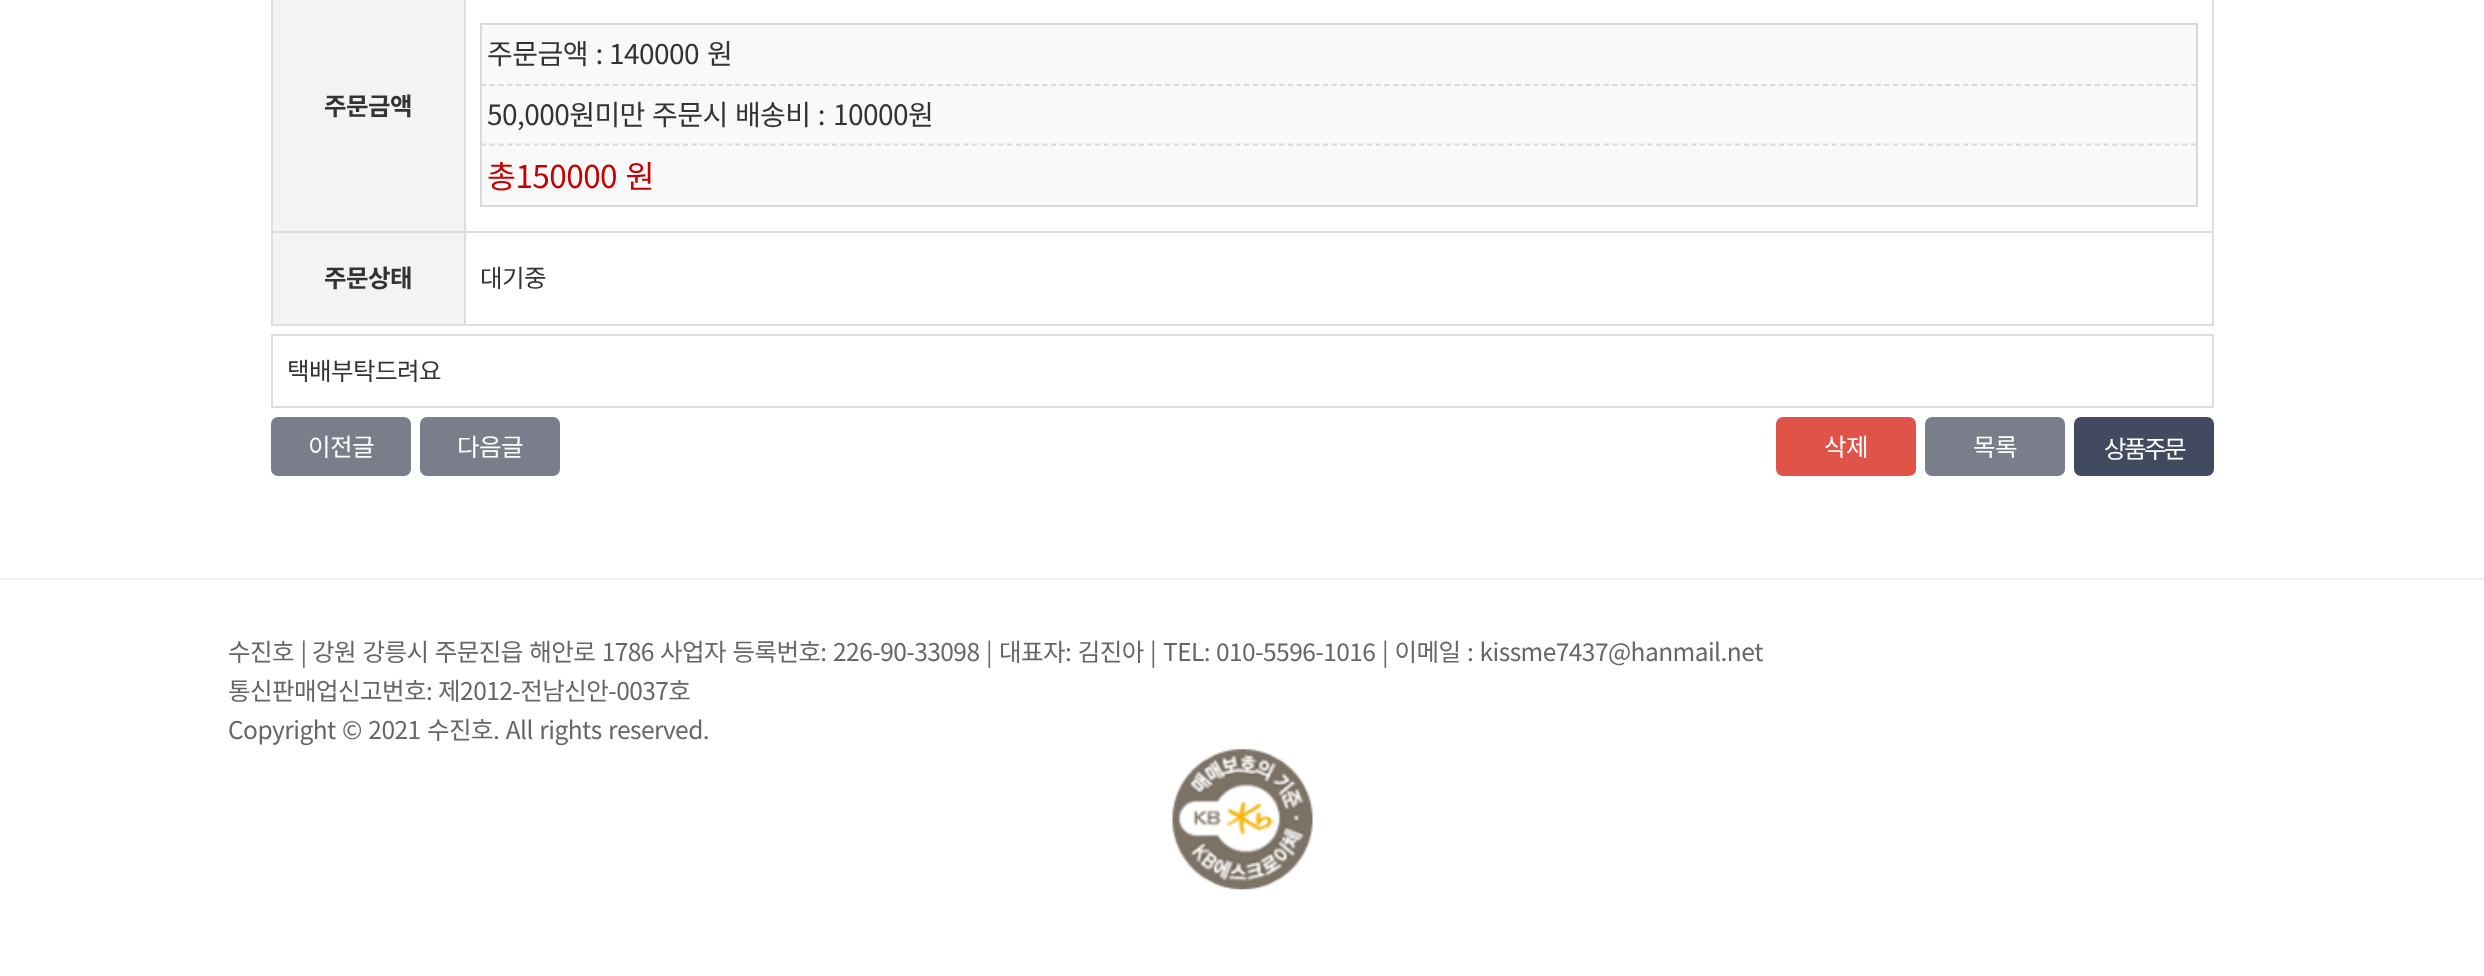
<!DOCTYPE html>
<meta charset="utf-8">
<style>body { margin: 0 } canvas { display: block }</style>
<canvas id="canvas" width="2484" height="976"></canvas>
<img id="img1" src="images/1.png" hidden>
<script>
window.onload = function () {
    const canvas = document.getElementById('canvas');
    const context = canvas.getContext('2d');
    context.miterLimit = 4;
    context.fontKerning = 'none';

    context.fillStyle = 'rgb(255, 255, 255)';
    context.fillRect(0, 0, 2484, 976);
    context.fillStyle = 'rgb(221, 221, 221)';
    context.fillRect(2212, 0, 2, 326);
    context.fillRect(271, 324, 1943, 2);
    context.fillRect(271, 0, 2, 326);
    context.fillStyle = 'rgb(243, 243, 243)';
    context.fillRect(273, 0, 191, 231);
    context.fillStyle = 'rgb(249, 249, 249)';
    context.beginPath();
    context.rect(481, 24, 1716, 182);
    context.fill();
    context.strokeStyle = 'rgb(217, 217, 217)';
    context.lineWidth = 2;
    context.stroke();
    context.beginPath();
    context.moveTo(481, 85);
    context.lineTo(2196, 85);
    context.lineWidth = 1.8;
    context.setLineDash([5.25, 3.52]);
    context.stroke();
    context.beginPath();
    context.moveTo(481, 144.5);
    context.lineTo(2196, 144.5);
    context.stroke();
    context.fillStyle = 'rgb(221, 221, 221)';
    context.fillRect(271, 231, 1943, 2);
    context.fillStyle = 'rgb(243, 243, 243)';
    context.fillRect(273, 233, 191, 91);
    context.fillStyle = 'rgb(221, 221, 221)';
    context.fillRect(464, 0, 2, 326);
    context.strokeStyle = 'rgb(221, 221, 221)';
    context.lineWidth = 2;
    context.setLineDash([]);
    context.strokeRect(272, 335, 1941, 72);
    context.fillStyle = 'rgb(122, 126, 138)';
    context.beginPath();
    context.roundRect(271, 417, 140, 59, 7);
    context.fill();
    context.beginPath();
    context.roundRect(420, 417, 140, 59, 7);
    context.fill();
    context.fillStyle = 'rgb(224, 83, 73)';
    context.beginPath();
    context.roundRect(1776, 417, 140, 59, 7);
    context.fill();
    context.fillStyle = 'rgb(122, 126, 138)';
    context.beginPath();
    context.roundRect(1925, 417, 140, 59, 7);
    context.fill();
    context.fillStyle = 'rgb(66, 74, 96)';
    context.beginPath();
    context.roundRect(2074, 417, 140, 59, 7);
    context.fill();
    context.fillStyle = 'rgb(238, 238, 238)';
    context.fillRect(0, 578, 2484, 2);
    context.drawImage(document.getElementById('img1'), 1172, 749, 141, 141);
    context.letterSpacing = '-0.55px';
    context.font = 'bold 24.5px Noto Sans KR';
    context.fillStyle = 'rgb(51, 51, 51)';
    context.fillText('주문금액', 324, 115);
    context.wordSpacing = '2px';
    context.font = '28px Noto Sans KR';
    context.fillText('주문금액 :', 487, 64);
    context.wordSpacing = '0px';
    context.fillText('140000', 609, 64);
    context.fillText('원', 707, 64);
    context.wordSpacing = '1.5px';
    context.fillText('50,000원미만 주문시 배송비 :', 487, 125);
    context.wordSpacing = '0px';
    context.fillText('10000원', 833, 125);
    context.wordSpacing = '2px';
    context.font = '31.5px Noto Sans KR';
    context.fillStyle = 'rgb(193, 2, 2)';
    context.fillText('총150000 원', 487, 188);
    context.wordSpacing = '0px';
    context.font = 'bold 24.5px Noto Sans KR';
    context.fillStyle = 'rgb(51, 51, 51)';
    context.fillText('주문상태', 324, 287);
    context.font = '24.5px Noto Sans KR';
    context.fillText('대기중', 480, 287);
    context.fillText('택배부탁드려요', 287, 380);
    context.fillStyle = 'rgb(255, 255, 255)';
    context.fillText('이전글', 308, 456);
    context.fillText('다음글', 457, 456);
    context.fillText('삭제', 1824, 456);
    context.fillText('목록', 1973, 456);
    context.letterSpacing = '-2.5px';
    context.fillText('상품주문', 2104, 458);
    context.letterSpacing = '-0.55px';
    context.wordSpacing = '1.5px';
    context.fillStyle = 'rgb(102, 102, 102)';
    context.fillText('수진호 |', 228, 661);
    context.fillText('강원 강릉시 주문진읍 해안로 1786', 312, 661);
    context.fillText('사업자 등록번호: 226-90-33098 |', 660, 661);
    context.fillText('대표자: 김진아 |', 999, 661);
    context.wordSpacing = '1px';
    context.fillText('TEL: 010-5596-1016', 1163, 661);
    context.wordSpacing = '1.5px';
    context.fillText('| 이메일 : kissme7437@hanmail.net', 1382, 661);
    context.wordSpacing = '1px';
    context.fillText('통신판매업신고번호: 제2012-전남신안-0037호', 228, 700);
    context.wordSpacing = '1.5px';
    context.fillText('Copyright © 2021 수진호. All rights reserved.', 228, 739);
};
</script>
